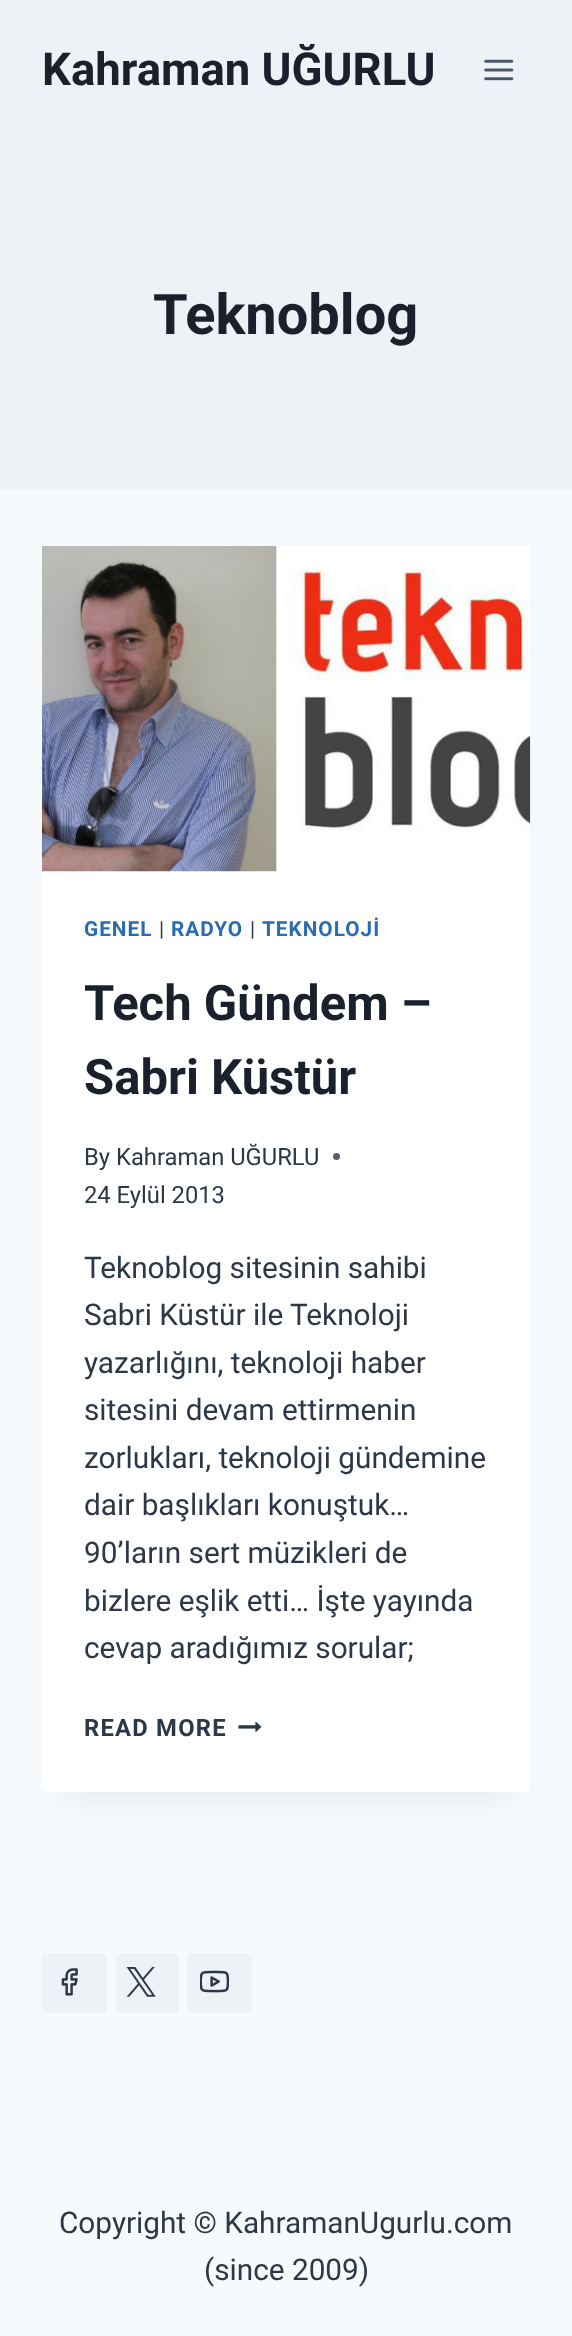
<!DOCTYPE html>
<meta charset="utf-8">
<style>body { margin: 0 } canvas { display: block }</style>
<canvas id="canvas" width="572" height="2336"></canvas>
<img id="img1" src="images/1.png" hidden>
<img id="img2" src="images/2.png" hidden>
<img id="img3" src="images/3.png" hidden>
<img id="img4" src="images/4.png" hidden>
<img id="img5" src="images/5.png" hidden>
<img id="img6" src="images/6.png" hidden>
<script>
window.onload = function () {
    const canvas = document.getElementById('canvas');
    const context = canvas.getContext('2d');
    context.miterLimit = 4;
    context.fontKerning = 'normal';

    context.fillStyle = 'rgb(247, 250, 252)';
    context.fillRect(0, 0, 572, 2336);
    context.fillStyle = 'rgb(237, 242, 247)';
    context.fillRect(0, 0, 572, 490);
    context.drawImage(document.getElementById('img1'), 484, 59, 30, 22);
    context.fillStyle = 'rgba(0, 0, 0, 0.05)';
    context.filter = 'blur(13px)';
    context.beginPath();
    context.rect(60, 590, 453, 1211);
    context.fill();
    context.filter = 'none';
    context.fillStyle = 'rgb(255, 255, 255)';
    context.beginPath();
    context.roundRect(42, 546, 488, 1246, 7);
    context.fill();
    context.drawImage(document.getElementById('img2'), 42, 546, 489, 326);
    context.fillStyle = 'rgb(87, 95, 109)';
    context.beginPath();
    context.arc(336.5, 1156.5, 3.5, 0, 2 * Math.PI);
    context.fill();
    context.drawImage(document.getElementById('img3'), 238, 1721, 24, 11);
    context.fillStyle = 'rgb(237, 242, 247)';
    context.beginPath();
    context.roundRect(42, 1953, 65, 60, 5);
    context.fill();
    context.drawImage(document.getElementById('img4'), 61, 1968, 17, 28);
    context.beginPath();
    context.roundRect(116, 1953, 63, 60, 5);
    context.fill();
    context.drawImage(document.getElementById('img5'), 126, 1967, 30, 30);
    context.beginPath();
    context.roundRect(187, 1953, 65, 60, 5);
    context.fill();
    context.drawImage(document.getElementById('img6'), 200, 1970, 29, 23);
    context.font = 'bold 45.5px Roboto';
    context.fillStyle = 'rgb(26, 32, 44)';
    context.fillText('Kahraman UĞURLU', 42, 85);
    context.font = 'bold 56px Roboto';
    context.fillText('Teknoblog', 153, 334);
    context.letterSpacing = '1px';
    context.font = 'bold 20.75px Roboto';
    context.fillStyle = 'rgb(43, 108, 176)';
    context.fillText('GENEL', 84, 936);
    context.font = '20.75px Roboto';
    context.fillStyle = 'rgb(45, 55, 72)';
    context.fillText('|', 159, 936);
    context.font = 'bold 20.75px Roboto';
    context.fillStyle = 'rgb(43, 108, 176)';
    context.fillText('RADYO', 171, 936);
    context.font = '20.75px Roboto';
    context.fillStyle = 'rgb(45, 55, 72)';
    context.fillText('|', 250, 936);
    context.font = 'bold 20.75px Roboto';
    context.fillStyle = 'rgb(43, 108, 176)';
    context.fillText('TEKNOLOJİ', 262, 936);
    context.letterSpacing = '0px';
    context.font = 'bold 49px Roboto';
    context.fillStyle = 'rgb(26, 32, 44)';
    context.fillText('Tech Gündem –', 84, 1020);
    context.fillText('Sabri Küstür', 84, 1094);
    context.font = '23.75px Roboto';
    context.fillStyle = 'rgb(45, 55, 72)';
    context.fillText('By', 84, 1165);
    context.fillText('Kahraman UĞURLU', 116, 1165);
    context.fillText('24 Eylül 2013', 84, 1203);
    context.font = '29.75px Roboto';
    context.fillText('Teknoblog sitesinin sahibi', 84, 1278);
    context.fillText('Sabri Küstür ile Teknoloji', 84, 1325);
    context.fillText('yazarlığını, teknoloji haber', 84, 1373);
    context.fillText('sitesini devam ettirmenin', 84, 1420);
    context.fillText('zorlukları, teknoloji gündemine', 84, 1468);
    context.fillText('dair başlıkları konuştuk…', 84, 1515);
    context.fillText('90’ların sert müzikleri de', 84, 1563);
    context.fillText('bizlere eşlik etti… İşte yayında', 84, 1611);
    context.fillText('cevap aradığımız sorular;', 84, 1658);
    context.letterSpacing = '1.25px';
    context.font = 'bold 23.75px Roboto';
    context.fillText('READ MORE', 84, 1736);
    context.letterSpacing = '0px';
    context.font = '29.75px Roboto';
    context.fillText('Copyright © KahramanUgurlu.com', 59, 2233);
    context.fillText('(since 2009)', 204, 2280);
};
</script>
